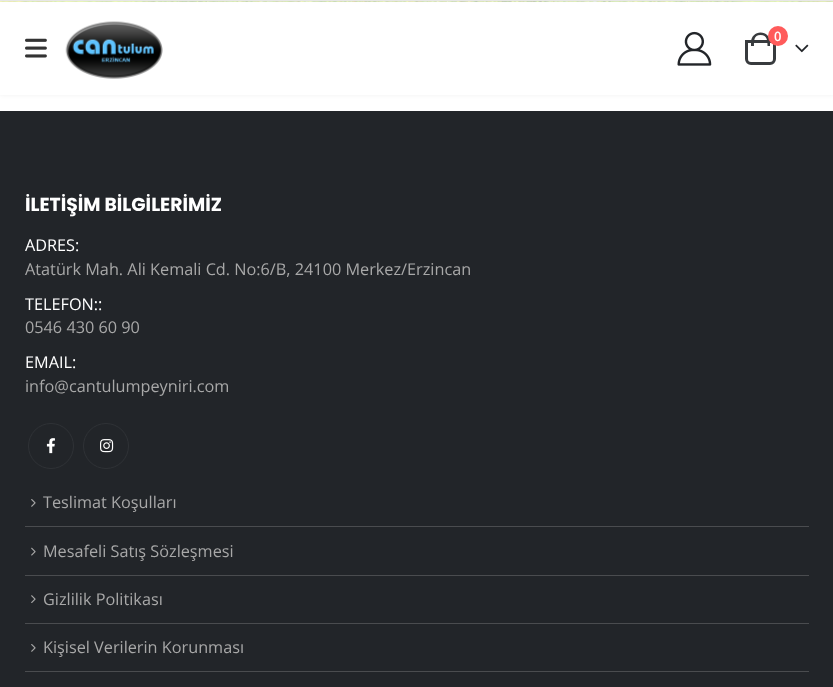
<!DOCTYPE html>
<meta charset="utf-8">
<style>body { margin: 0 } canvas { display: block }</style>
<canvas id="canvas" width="833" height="687"></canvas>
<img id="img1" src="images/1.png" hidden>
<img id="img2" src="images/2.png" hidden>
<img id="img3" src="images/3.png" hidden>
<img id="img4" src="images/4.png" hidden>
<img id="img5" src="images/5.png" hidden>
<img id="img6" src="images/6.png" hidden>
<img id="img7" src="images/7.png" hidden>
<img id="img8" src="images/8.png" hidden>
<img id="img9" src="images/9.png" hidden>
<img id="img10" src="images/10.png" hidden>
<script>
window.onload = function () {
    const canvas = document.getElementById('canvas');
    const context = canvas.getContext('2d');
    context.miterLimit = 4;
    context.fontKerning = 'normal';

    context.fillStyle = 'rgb(255, 255, 255)';
    context.fillRect(0, 0, 833, 687);
    context.fillStyle = 'rgba(0, 0, 0, 0.06)';
    context.filter = 'blur(2px)';
    context.beginPath();
    context.rect(0, 0, 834, 95);
    context.fill();
    context.filter = 'none';
    context.fillStyle = 'rgb(255, 255, 255)';
    context.fillRect(0, 1, 833, 94);
    context.drawImage(document.getElementById('img1'), 0, 1, 833, 1);
    context.fillStyle = 'rgb(231, 231, 231)';
    context.fillRect(0, 0, 833, 1);
    context.drawImage(document.getElementById('img2'), 65, 21, 98, 58);
    context.drawImage(document.getElementById('img3'), 677, 31, 35, 35);
    context.beginPath();
    context.roundRect(746.5, 41.5, 28, 22, [0, 0, 4.5, 4.5]);
    context.strokeStyle = 'rgb(56, 59, 62)';
    context.lineWidth = 3;
    context.stroke();
    context.fillStyle = 'rgb(56, 59, 62)';
    context.beginPath();
    context.moveTo(760.5, 32.5);
    context.bezierCurveTo(766, 32.5, 770, 36.5, 770, 42);
    context.lineTo(770, 46);
    context.lineTo(751, 46);
    context.lineTo(751, 42);
    context.bezierCurveTo(751, 36.5, 755.5, 32.5, 760.5, 32.5);
    context.closePath();
    context.moveTo(760.5, 35);
    context.bezierCurveTo(767.5, 35, 767.5, 41.5, 767.5, 46);
    context.lineTo(754, 46);
    context.bezierCurveTo(754, 41.5, 753.5, 35, 760.5, 35);
    context.closePath();
    context.fill('evenodd');
    context.fillStyle = 'rgb(255, 91, 91)';
    context.beginPath();
    context.arc(778, 36, 10, 0, 2 * Math.PI);
    context.fill();
    context.drawImage(document.getElementById('img4'), 795, 44, 14, 9);
    context.drawImage(document.getElementById('img5'), 25, 38, 22, 20);
    context.fillStyle = 'rgb(34, 37, 41)';
    context.fillRect(0, 111, 833, 576);
    context.beginPath();
    context.arc(51, 446, 22.5, 0, 2 * Math.PI);
    context.strokeStyle = 'rgb(47, 50, 54)';
    context.lineWidth = 1;
    context.stroke();
    context.drawImage(document.getElementById('img6'), 46, 438, 9, 16);
    context.beginPath();
    context.arc(106, 446, 22.5, 0, 2 * Math.PI);
    context.stroke();
    context.drawImage(document.getElementById('img7'), 100, 439, 14, 14);
    context.fillStyle = 'rgb(74, 76, 79)';
    context.fillRect(25, 671, 784, 1);
    context.drawImage(document.getElementById('img8'), 31, 499, 5, 8);
    context.fillRect(25, 526, 784, 1);
    context.drawImage(document.getElementById('img9'), 31, 547, 5, 9);
    context.fillRect(25, 575, 784, 1);
    context.drawImage(document.getElementById('img10'), 31, 595, 5, 8);
    context.fillRect(25, 623, 784, 1);
    context.drawImage(document.getElementById('img8'), 31, 644, 5, 8);
    context.font = '600 13px Open Sans';
    context.fillStyle = 'rgb(255, 255, 255)';
    context.fillText('0', 774, 41);
    context.font = 'bold 18.75px Poppins';
    context.fillText('İLETİŞİM BİLGİLERİMİZ', 25, 211);
    context.font = '16.25px Open Sans';
    context.fillText('ADRES:', 25, 251);
    context.fillStyle = 'rgb(168, 168, 168)';
    context.fillText('Atatürk Mah. Ali Kemali Cd. No:6/B, 24100 Merkez/Erzincan', 25, 275);
    context.fillStyle = 'rgb(255, 255, 255)';
    context.fillText('TELEFON::', 25, 310);
    context.fillStyle = 'rgb(168, 168, 168)';
    context.fillText('0546 430 60 90', 25, 333);
    context.fillStyle = 'rgb(255, 255, 255)';
    context.fillText('EMAIL:', 25, 368);
    context.fillStyle = 'rgb(168, 168, 168)';
    context.fillText('info@cantulumpeyniri.com', 25, 392);
    context.fillText('Teslimat Koşulları', 43, 508);
    context.fillText('Mesafeli Satış Sözleşmesi', 43, 557);
    context.fillText('Gizlilik Politikası', 43, 605);
    context.fillText('Kişisel Verilerin Korunması', 43, 653);
};
</script>
